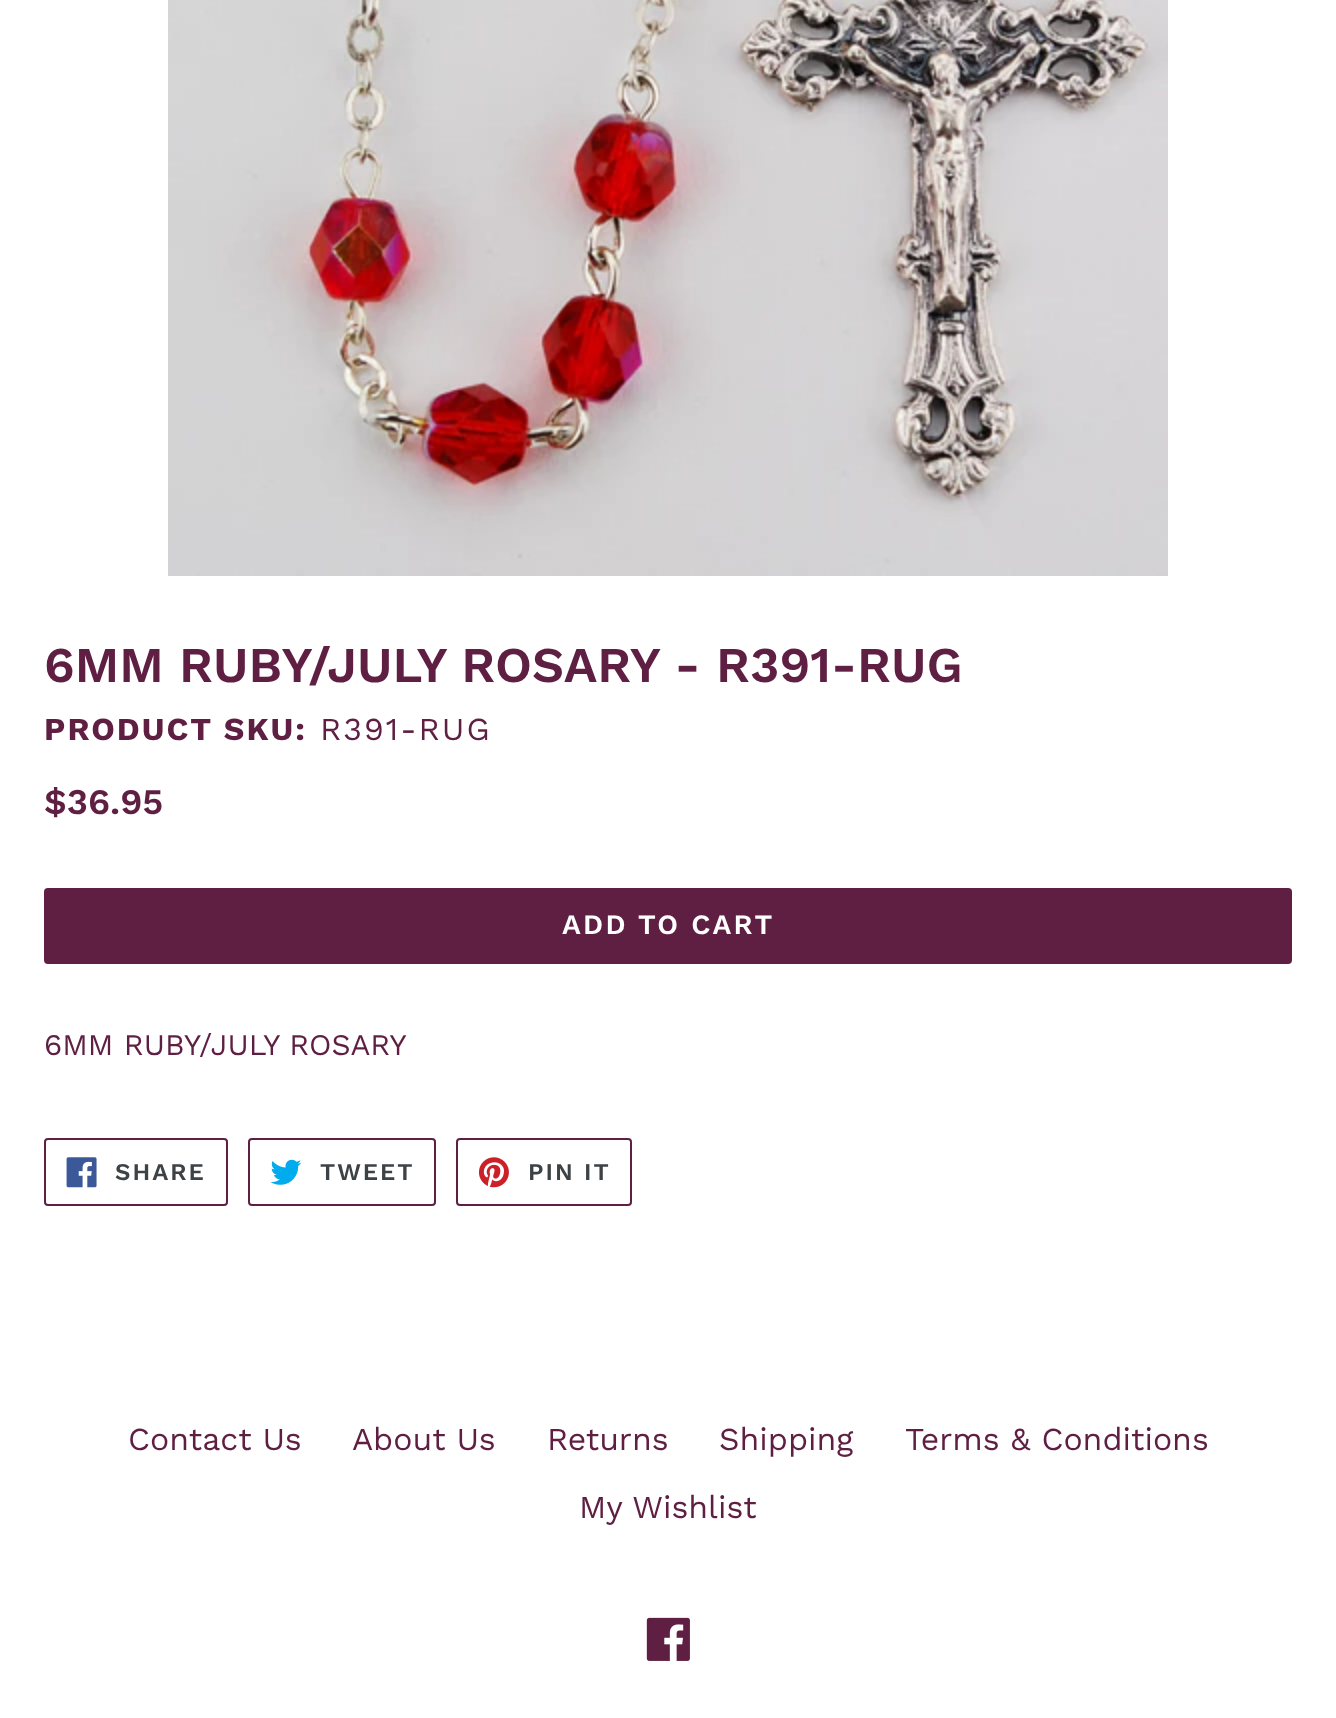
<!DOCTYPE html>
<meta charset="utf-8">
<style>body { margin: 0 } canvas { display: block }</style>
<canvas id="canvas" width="1336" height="1718"></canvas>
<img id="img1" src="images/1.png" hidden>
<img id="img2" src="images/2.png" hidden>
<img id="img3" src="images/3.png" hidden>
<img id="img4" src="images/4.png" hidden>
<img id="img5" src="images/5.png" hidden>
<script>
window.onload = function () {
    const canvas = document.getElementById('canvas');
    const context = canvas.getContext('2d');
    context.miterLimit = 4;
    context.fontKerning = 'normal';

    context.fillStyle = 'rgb(255, 255, 255)';
    context.fillRect(0, 0, 1336, 1718);
    context.drawImage(document.getElementById('img1'), 168, 0, 1000, 576);
    context.fillStyle = 'rgb(95, 31, 66)';
    context.beginPath();
    context.roundRect(44, 888, 1248, 76, 4);
    context.fill();
    context.beginPath();
    context.roundRect(45, 1139, 182, 66, 3);
    context.strokeStyle = 'rgb(95, 31, 66)';
    context.lineWidth = 2;
    context.stroke();
    context.drawImage(document.getElementById('img2'), 66, 1157, 31, 31);
    context.beginPath();
    context.roundRect(249, 1139, 186, 66, 3);
    context.stroke();
    context.drawImage(document.getElementById('img3'), 270, 1159, 32, 26);
    context.beginPath();
    context.roundRect(457, 1139, 174, 66, 3);
    context.stroke();
    context.drawImage(document.getElementById('img4'), 478, 1157, 31, 31);
    context.drawImage(document.getElementById('img5'), 646, 1617, 44, 44);
    context.font = '600 50px Work Sans';
    context.fillText('6MM RUBY/JULY ROSARY - R391-RUG', 44, 682);
    context.letterSpacing = '2px';
    context.font = 'bold 32px Work Sans';
    context.fillText('PRODUCT SKU:', 44, 740);
    context.font = '32px Work Sans';
    context.fillText('R391-RUG', 320, 740);
    context.letterSpacing = '0px';
    context.font = '600 36px Work Sans';
    context.fillText('$36.95', 44, 814);
    context.letterSpacing = '2.25px';
    context.font = '600 28px Work Sans';
    context.fillStyle = 'rgb(255, 255, 255)';
    context.fillText('ADD TO CART', 562, 934);
    context.letterSpacing = '0px';
    context.font = '30px Work Sans';
    context.fillStyle = 'rgb(95, 31, 66)';
    context.fillText('6MM RUBY/JULY ROSARY', 44, 1055);
    context.letterSpacing = '2px';
    context.font = '600 24px Work Sans';
    context.fillStyle = 'rgb(61, 66, 70)';
    context.fillText('SHARE', 115, 1180);
    context.fillText('TWEET', 320, 1180);
    context.fillText('PIN IT', 528, 1180);
    context.letterSpacing = '0px';
    context.font = '32px Work Sans';
    context.fillStyle = 'rgb(95, 31, 66)';
    context.fillText('Contact Us', 128, 1450);
    context.fillText('About Us', 352, 1450);
    context.fillText('Returns', 547, 1450);
    context.fillText('Shipping', 719, 1450);
    context.fillText('Terms & Conditions', 905, 1450);
    context.fillText('My Wishlist', 579, 1518);
};
</script>
